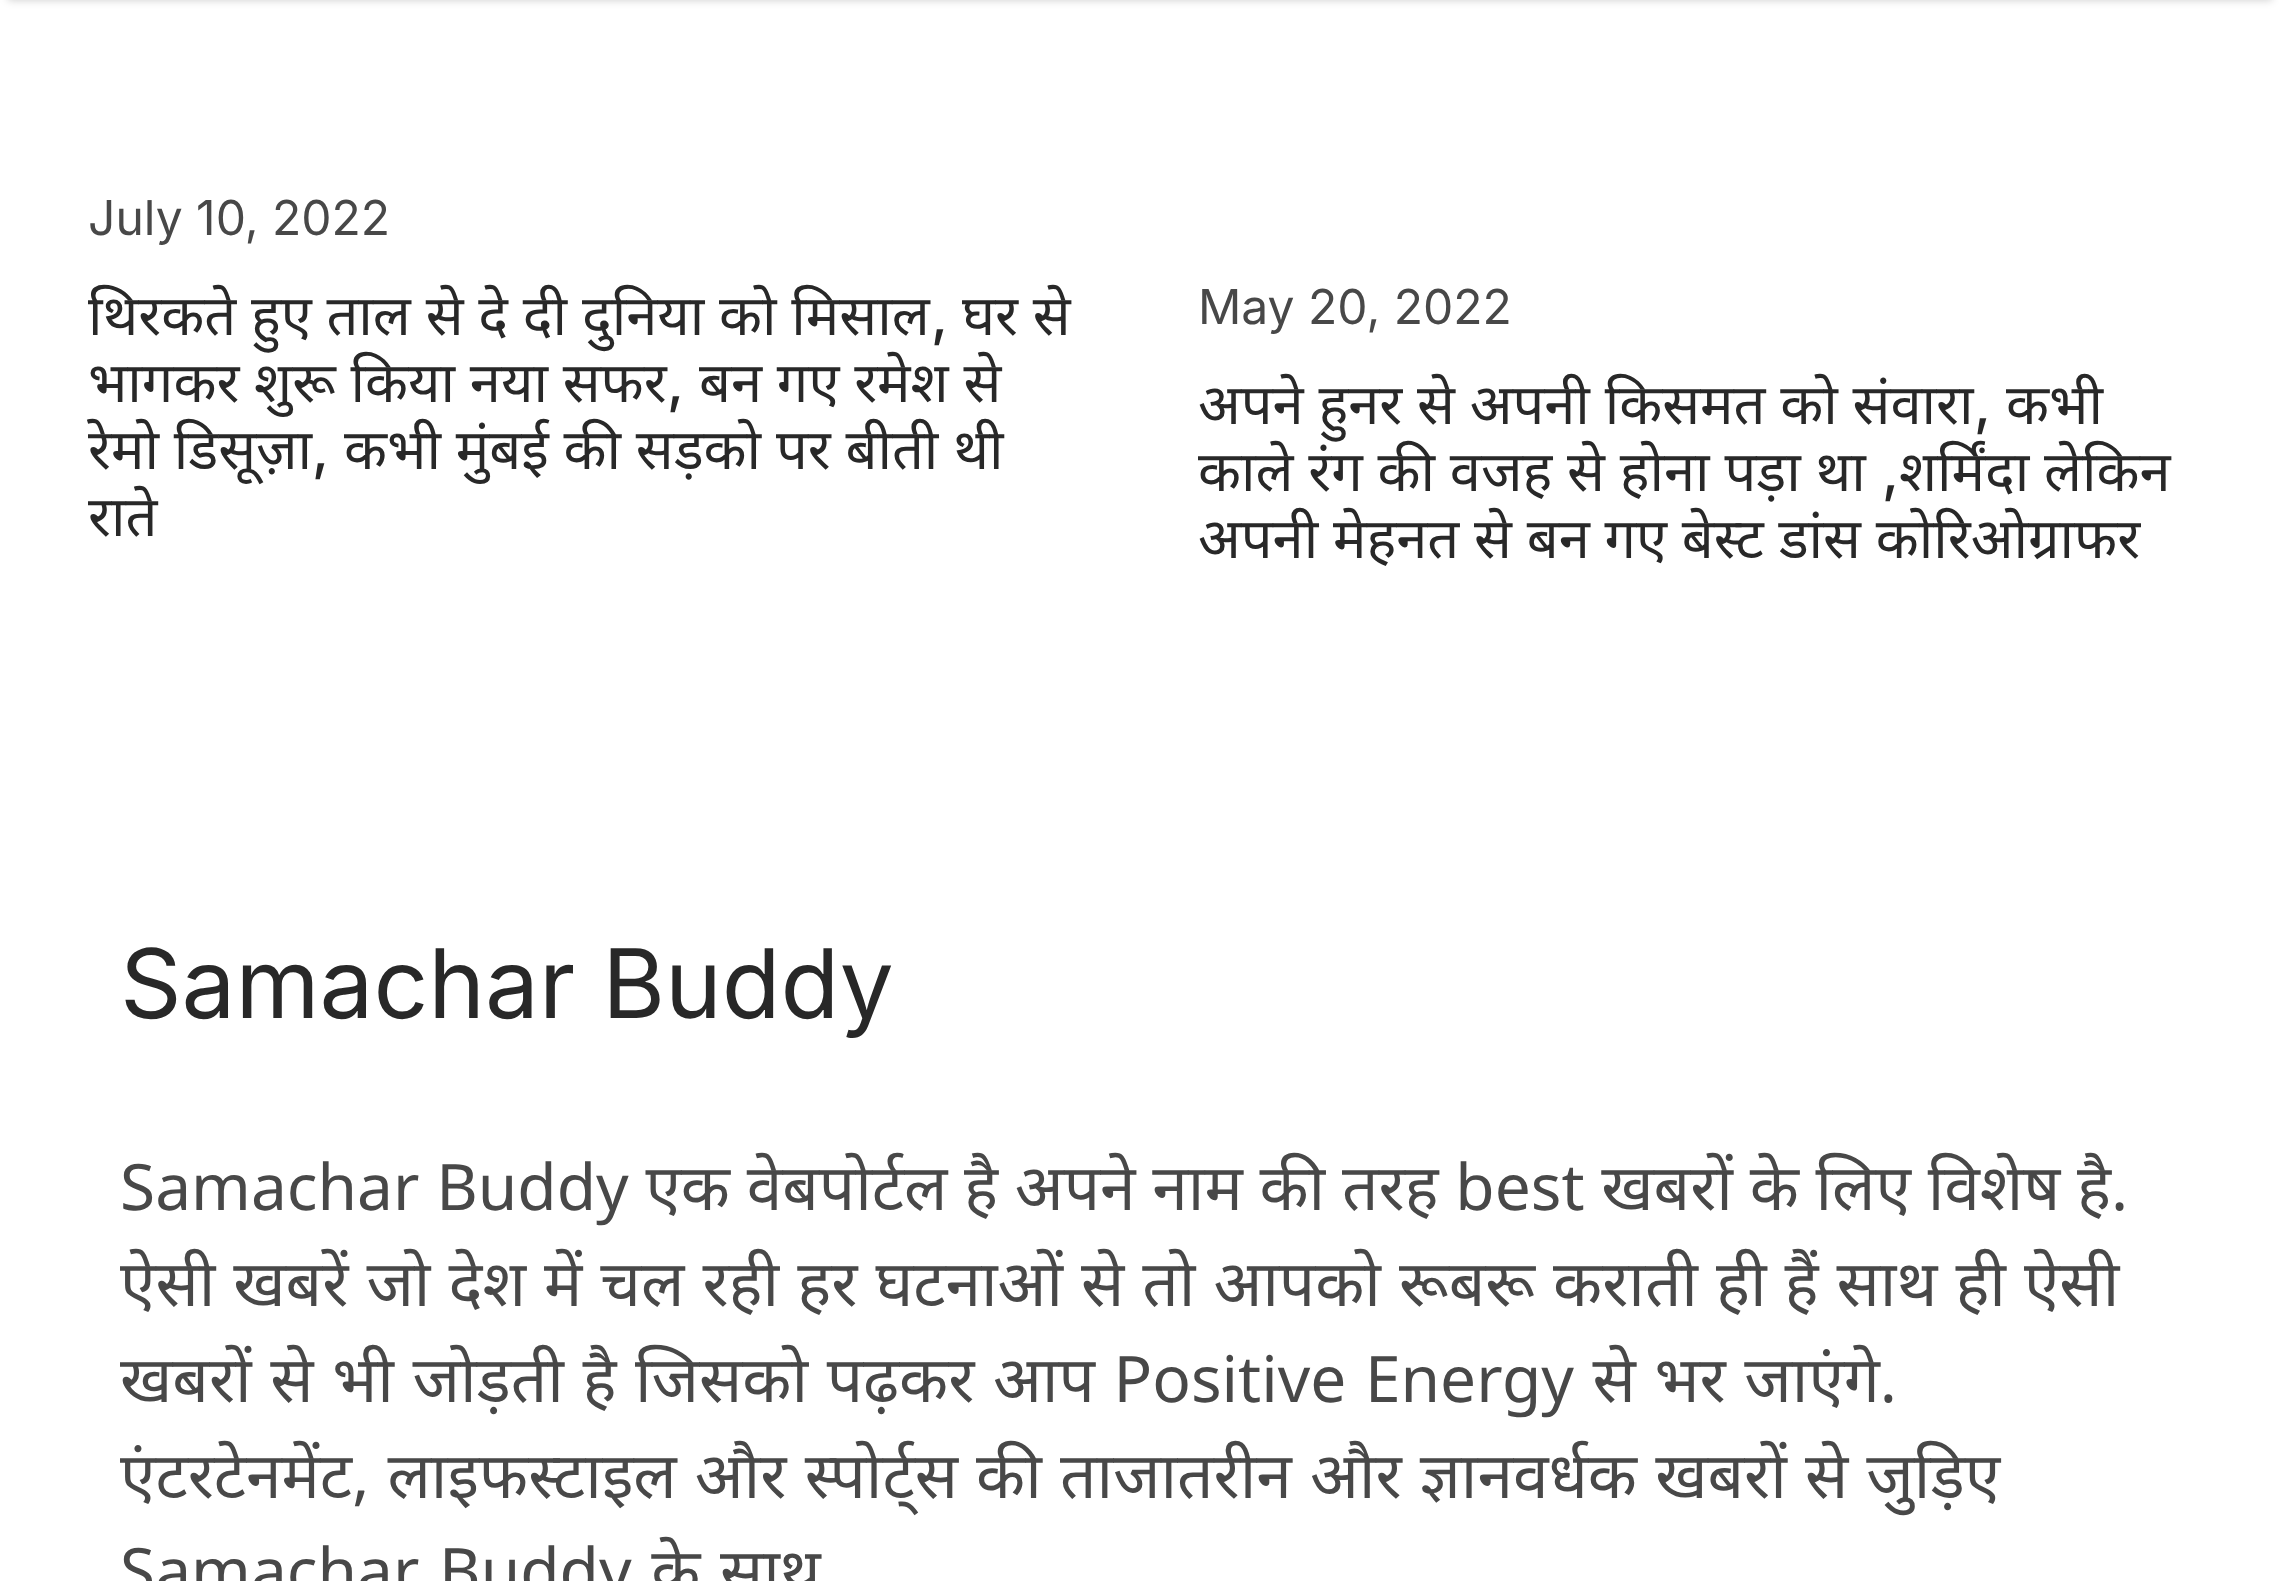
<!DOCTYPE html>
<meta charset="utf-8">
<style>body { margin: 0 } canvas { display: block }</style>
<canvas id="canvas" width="2279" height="1581"></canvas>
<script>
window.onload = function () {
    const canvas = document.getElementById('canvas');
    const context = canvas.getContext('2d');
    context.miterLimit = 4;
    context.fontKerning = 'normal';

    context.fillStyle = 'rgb(255, 255, 255)';
    context.fillRect(0, 0, 2279, 1581);
    context.fillStyle = 'rgba(0, 0, 0, 0.2)';
    context.filter = 'blur(4px)';
    context.beginPath();
    context.rect(8, -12, 2264, 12);
    context.fill();
    context.filter = 'none';
    context.font = '48px Inter';
    context.fillStyle = 'rgb(72, 72, 72)';
    context.fillText('July 10, 2022', 88, 235);
    context.wordSpacing = '0.25px';
    context.font = '56px Noto Sans';
    context.fillStyle = 'rgb(40, 40, 40)';
    context.fillText('थिरकते हुए ताल से दे दी दुनिया को मिसाल', 88, 335);
    context.wordSpacing = '0px';
    context.font = '500 56px Inter';
    context.fillText(',', 931, 335);
    context.wordSpacing = '0.25px';
    context.font = '56px Noto Sans';
    context.fillText('घर से', 962, 335);
    context.fillText('भागकर शुरू किया नया सफर', 88, 402);
    context.wordSpacing = '0px';
    context.font = '500 56px Inter';
    context.fillText(',', 667, 402);
    context.wordSpacing = '0.25px';
    context.font = '56px Noto Sans';
    context.fillText('बन गए रमेश से', 699, 402);
    context.fillText('रेमो डिसूज़ा', 88, 469);
    context.wordSpacing = '0px';
    context.font = '500 56px Inter';
    context.fillText(',', 312, 469);
    context.wordSpacing = '0.25px';
    context.font = '56px Noto Sans';
    context.fillText('कभी मुंबई की सड़को पर बीती थी', 344, 469);
    context.wordSpacing = '0px';
    context.fillText('राते', 88, 536);
    context.font = '48px Inter';
    context.fillStyle = 'rgb(72, 72, 72)';
    context.fillText('May 20, 2022', 1198, 324);
    context.wordSpacing = '0.25px';
    context.font = '56px Noto Sans';
    context.fillStyle = 'rgb(40, 40, 40)';
    context.fillText('अपने हुनर से अपनी किसमत को संवारा', 1198, 424);
    context.wordSpacing = '0px';
    context.fillText('कभी', 2006, 424);
    context.font = '500 56px Inter';
    context.fillText(',', 1974, 424);
    context.wordSpacing = '0.25px';
    context.font = '56px Noto Sans';
    context.fillText('काले रंग की वजह से होना पड़ा था', 1198, 491);
    context.wordSpacing = '0px';
    context.font = '500 56px Inter';
    context.fillText(',', 1882, 491);
    context.wordSpacing = '0.25px';
    context.font = '56px Noto Sans';
    context.fillText('शर्मिंदा लेकिन', 1899, 491);
    context.fillText('अपनी मेहनत से बन गए बेस्ट डांस कोरिओग्राफर', 1198, 558);
    context.wordSpacing = '0px';
    context.font = '96px Inter';
    context.fillText('Samachar Buddy', 120, 1018);
    context.wordSpacing = '0.1px';
    context.font = '64px Noto Sans';
    context.fillStyle = 'rgb(72, 72, 72)';
    context.fillText('Samachar Buddy एक वेबपोर्टल है अपने नाम की तरह best खबरों के लिए विशेष है.', 120, 1210);
    context.wordSpacing = '1.4px';
    context.fillText('ऐसी खबरें जो देश में चल रही हर घटनाओं से तो आपको रूबरू कराती ही हैं साथ ही ऐसी', 120, 1306);
    context.wordSpacing = '2px';
    context.fillText('खबरों से भी जोड़ती है जिसको पढ़कर आप Positive Energy से भर जाएंगे.', 120, 1402);
    context.wordSpacing = '1.5px';
    context.fillText('एंटरटेनमेंट, लाइफस्टाइल और स्पोर्ट्स की ताजातरीन और ज्ञानवर्धक खबरों से जुड़िए', 120, 1498);
    context.wordSpacing = '3px';
    context.fillText('Samachar Buddy के साथ', 120, 1594);
};
</script>
